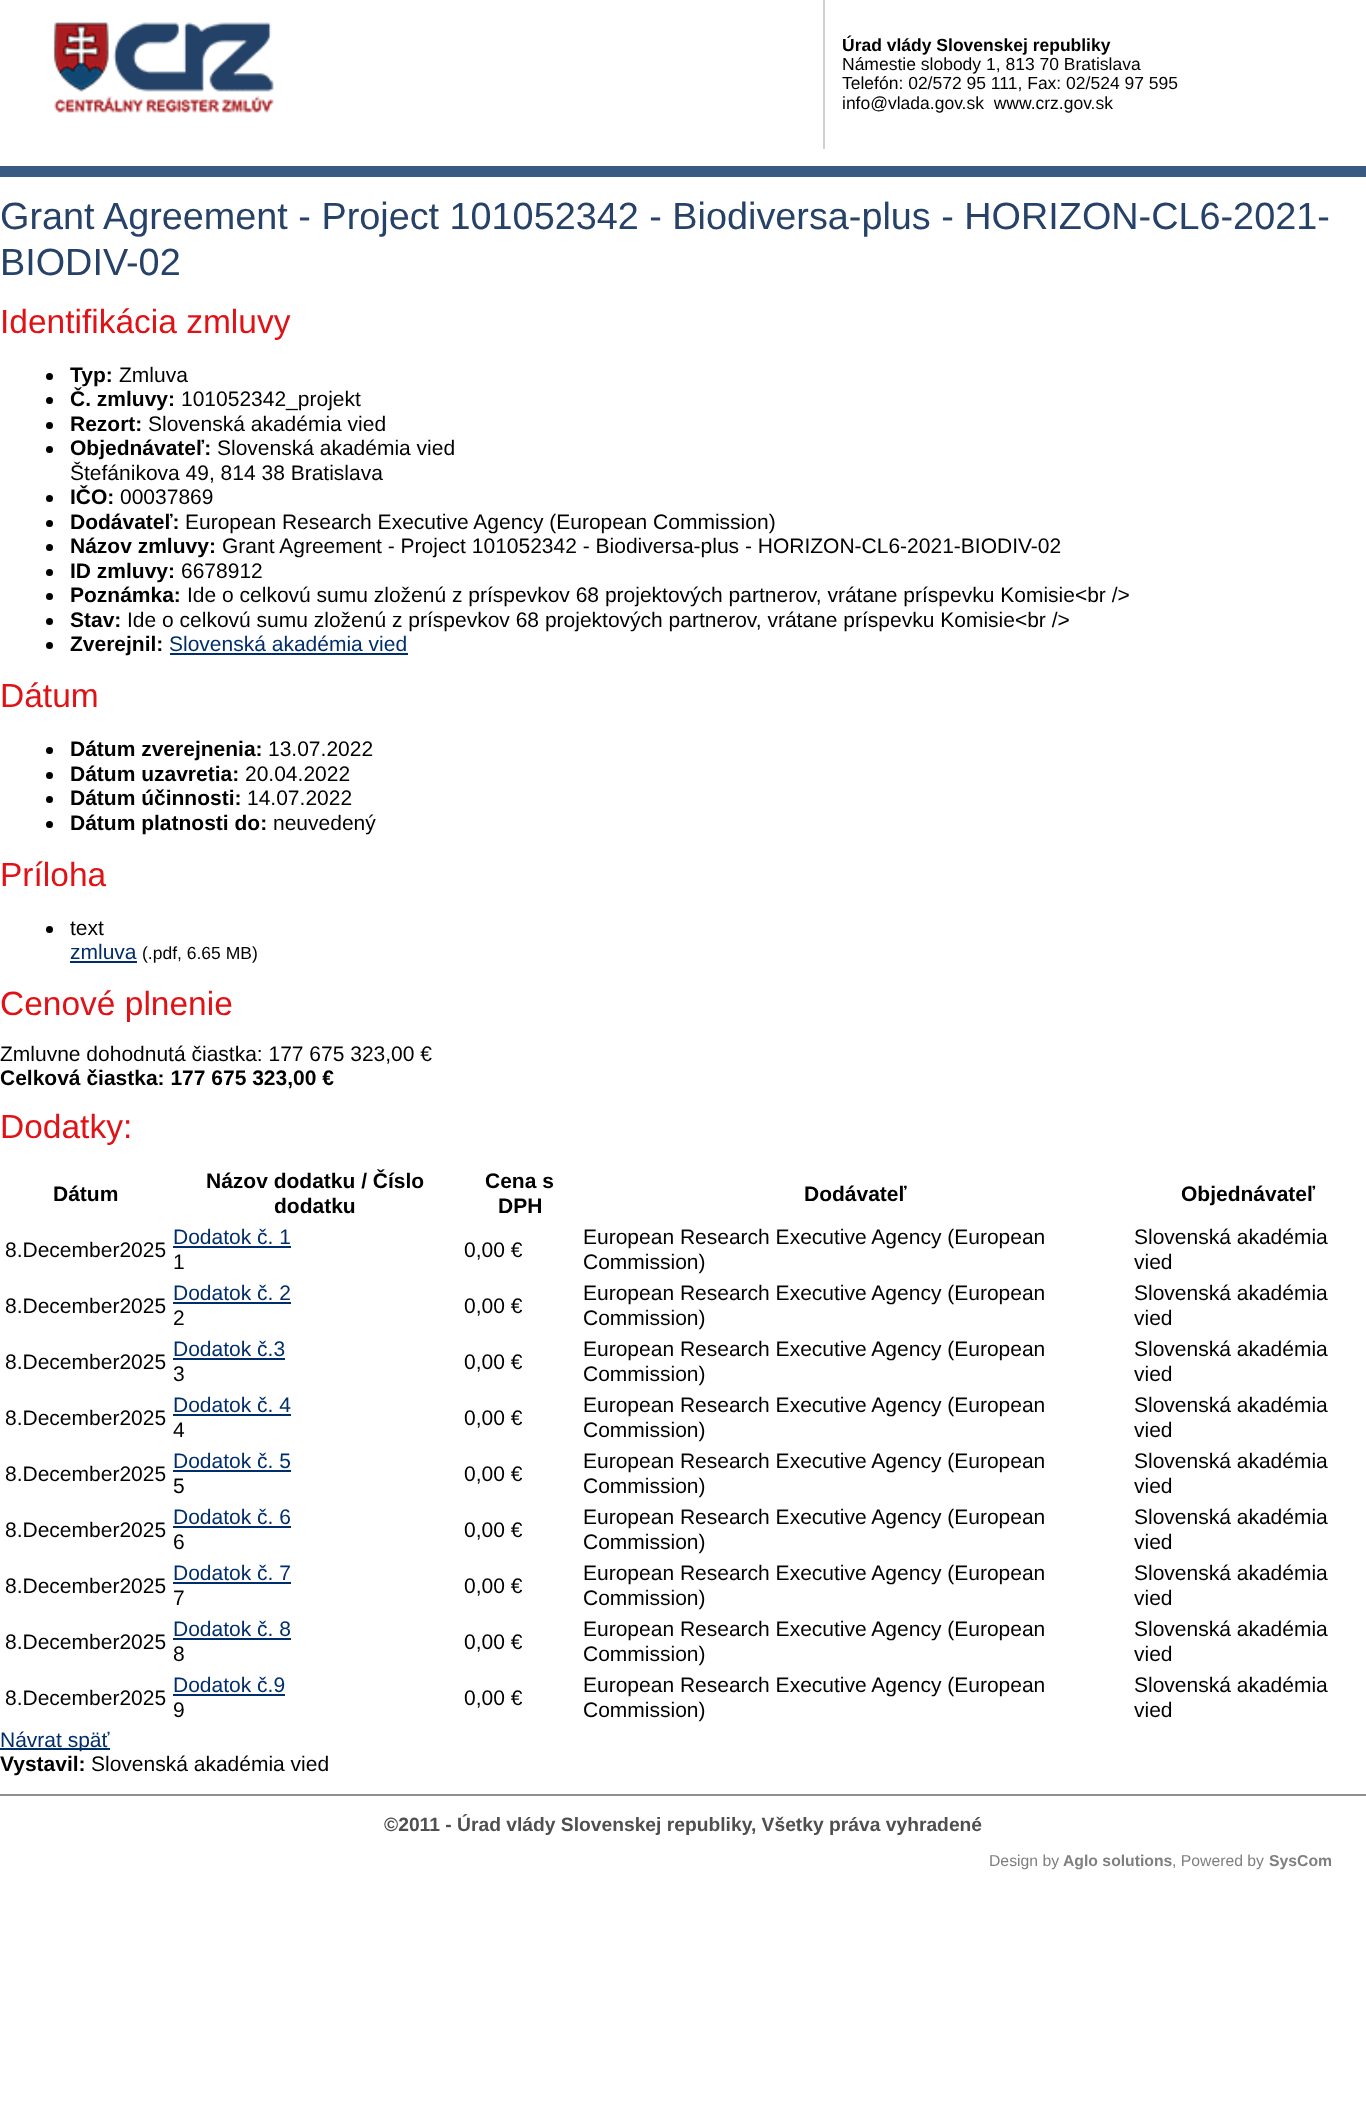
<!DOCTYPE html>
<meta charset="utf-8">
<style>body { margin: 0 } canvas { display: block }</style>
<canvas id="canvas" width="1366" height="2122"></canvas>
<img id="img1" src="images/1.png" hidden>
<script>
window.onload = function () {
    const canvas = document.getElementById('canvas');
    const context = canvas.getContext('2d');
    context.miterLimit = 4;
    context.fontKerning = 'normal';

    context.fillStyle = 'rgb(255, 255, 255)';
    context.fillRect(0, 0, 1366, 2122);
    context.fillStyle = 'rgb(58, 90, 130)';
    context.fillRect(0, 166, 1366, 11);
    context.drawImage(document.getElementById('img1'), 53, 22, 221, 91);
    context.fillStyle = 'rgb(211, 210, 210)';
    context.fillRect(823, 0, 2, 149);
    context.fillStyle = 'rgb(0, 0, 0)';
    context.beginPath();
    context.arc(49.5, 376.5, 3.5, 0, 2 * Math.PI);
    context.fill();
    context.beginPath();
    context.arc(49.5, 400.5, 3.5, 0, 2 * Math.PI);
    context.fill();
    context.beginPath();
    context.arc(49.5, 425.5, 3.5, 0, 2 * Math.PI);
    context.fill();
    context.beginPath();
    context.arc(49.5, 449.5, 3.5, 0, 2 * Math.PI);
    context.fill();
    context.beginPath();
    context.arc(49.5, 498.5, 3.5, 0, 2 * Math.PI);
    context.fill();
    context.beginPath();
    context.arc(49.5, 523.5, 3.5, 0, 2 * Math.PI);
    context.fill();
    context.beginPath();
    context.arc(49.5, 547.5, 3.5, 0, 2 * Math.PI);
    context.fill();
    context.beginPath();
    context.arc(49.5, 572.5, 3.5, 0, 2 * Math.PI);
    context.fill();
    context.beginPath();
    context.arc(49.5, 596.5, 3.5, 0, 2 * Math.PI);
    context.fill();
    context.beginPath();
    context.arc(49.5, 621.5, 3.5, 0, 2 * Math.PI);
    context.fill();
    context.beginPath();
    context.arc(49.5, 645.5, 3.5, 0, 2 * Math.PI);
    context.fill();
    context.fillStyle = 'rgb(0, 45, 107)';
    context.fillRect(170, 653, 238, 2);
    context.fillStyle = 'rgb(0, 0, 0)';
    context.beginPath();
    context.arc(49.5, 750.5, 3.5, 0, 2 * Math.PI);
    context.fill();
    context.beginPath();
    context.arc(49.5, 775.5, 3.5, 0, 2 * Math.PI);
    context.fill();
    context.beginPath();
    context.arc(49.5, 799.5, 3.5, 0, 2 * Math.PI);
    context.fill();
    context.beginPath();
    context.arc(49.5, 824.5, 3.5, 0, 2 * Math.PI);
    context.fill();
    context.beginPath();
    context.arc(49.5, 929.5, 3.5, 0, 2 * Math.PI);
    context.fill();
    context.fillStyle = 'rgb(0, 45, 107)';
    context.fillRect(70, 961, 67, 2);
    context.fillRect(173, 1246, 118, 2);
    context.fillRect(173, 1302, 118, 2);
    context.fillRect(173, 1358, 112, 2);
    context.fillRect(173, 1414, 118, 2);
    context.fillRect(173, 1470, 118, 2);
    context.fillRect(173, 1526, 118, 2);
    context.fillRect(173, 1582, 118, 2);
    context.fillRect(173, 1638, 118, 2);
    context.fillRect(173, 1694, 112, 2);
    context.fillRect(0, 1748, 110, 2);
    context.fillStyle = 'rgb(143, 143, 143)';
    context.fillRect(0, 1794, 1366, 2);
    context.font = 'bold 17.5px Liberation Sans';
    context.fillStyle = 'rgb(0, 0, 0)';
    context.fillText('Úrad vlády Slovenskej republiky', 842, 51);
    context.font = '17.5px Liberation Sans';
    context.fillText('Námestie slobody 1, 813 70 Bratislava', 842, 70);
    context.fillText('Telefón: 02/572 95 111, Fax: 02/524 97 595', 842, 89);
    context.fillText('info@vlada.gov.sk  www.crz.gov.sk', 842, 109);
    context.font = '37.8px Liberation Sans';
    context.fillStyle = 'rgb(38, 66, 104)';
    context.fillText('Grant Agreement - Project 101052342 - Biodiversa-plus - HORIZON-CL6-2021-', 0, 229);
    context.fillText('BIODIV-02', 0, 275);
    context.font = '33.5px Liberation Sans';
    context.fillStyle = 'rgb(225, 18, 22)';
    context.fillText('Identifikácia zmluvy', 0, 333);
    context.font = 'bold 21px Liberation Sans';
    context.fillStyle = 'rgb(0, 0, 0)';
    context.fillText('Typ:', 70, 382);
    context.font = '21px Liberation Sans';
    context.fillText('Zmluva', 119, 382);
    context.font = 'bold 21px Liberation Sans';
    context.fillText('Č. zmluvy:', 70, 406);
    context.font = '21px Liberation Sans';
    context.fillText('101052342_projekt', 181, 406);
    context.font = 'bold 21px Liberation Sans';
    context.fillText('Rezort:', 70, 431);
    context.font = '21px Liberation Sans';
    context.fillText('Slovenská akadémia vied', 148, 431);
    context.font = 'bold 21px Liberation Sans';
    context.fillText('Objednávateľ:', 70, 455);
    context.font = '21px Liberation Sans';
    context.fillText('Slovenská akadémia vied', 217, 455);
    context.fillText('Štefánikova 49, 814 38 Bratislava', 70, 480);
    context.font = 'bold 21px Liberation Sans';
    context.fillText('IČO:', 70, 504);
    context.font = '21px Liberation Sans';
    context.fillText('00037869', 120, 504);
    context.font = 'bold 21px Liberation Sans';
    context.fillText('Dodávateľ:', 70, 529);
    context.font = '21px Liberation Sans';
    context.fillText('European Research Executive Agency (European Commission)', 185, 529);
    context.font = 'bold 21px Liberation Sans';
    context.fillText('Názov zmluvy:', 70, 553);
    context.font = '21px Liberation Sans';
    context.fillText('Grant Agreement - Project 101052342 - Biodiversa-plus - HORIZON-CL6-2021-BIODIV-02', 222, 553);
    context.font = 'bold 21px Liberation Sans';
    context.fillText('ID zmluvy:', 70, 578);
    context.font = '21px Liberation Sans';
    context.fillText('6678912', 181, 578);
    context.font = 'bold 21px Liberation Sans';
    context.fillText('Poznámka:', 70, 602);
    context.font = '21px Liberation Sans';
    context.fillText('Ide o celkovú sumu zloženú z príspevkov 68 projektových partnerov, vrátane príspevku Komisie<br />', 187, 602);
    context.font = 'bold 21px Liberation Sans';
    context.fillText('Stav:', 70, 627);
    context.font = '21px Liberation Sans';
    context.fillText('Ide o celkovú sumu zloženú z príspevkov 68 projektových partnerov, vrátane príspevku Komisie<br />', 127, 627);
    context.font = 'bold 21px Liberation Sans';
    context.fillText('Zverejnil:', 70, 651);
    context.font = '21px Liberation Sans';
    context.fillStyle = 'rgb(0, 45, 107)';
    context.fillText('Slovenská akadémia vied', 169, 651);
    context.font = '33.5px Liberation Sans';
    context.fillStyle = 'rgb(225, 18, 22)';
    context.fillText('Dátum', 0, 707);
    context.font = 'bold 21px Liberation Sans';
    context.fillStyle = 'rgb(0, 0, 0)';
    context.fillText('Dátum zverejnenia:', 70, 756);
    context.font = '21px Liberation Sans';
    context.fillText('13.07.2022', 268, 756);
    context.font = 'bold 21px Liberation Sans';
    context.fillText('Dátum uzavretia:', 70, 781);
    context.font = '21px Liberation Sans';
    context.fillText('20.04.2022', 245, 781);
    context.font = 'bold 21px Liberation Sans';
    context.fillText('Dátum účinnosti:', 70, 805);
    context.font = '21px Liberation Sans';
    context.fillText('14.07.2022', 247, 805);
    context.font = 'bold 21px Liberation Sans';
    context.fillText('Dátum platnosti do:', 70, 830);
    context.font = '21px Liberation Sans';
    context.fillText('neuvedený', 273, 830);
    context.font = '33.5px Liberation Sans';
    context.fillStyle = 'rgb(225, 18, 22)';
    context.fillText('Príloha', 0, 886);
    context.font = '21px Liberation Sans';
    context.fillStyle = 'rgb(0, 0, 0)';
    context.fillText('text', 70, 935);
    context.fillStyle = 'rgb(0, 45, 107)';
    context.fillText('zmluva', 70, 959);
    context.font = '17.5px Liberation Sans';
    context.fillStyle = 'rgb(0, 0, 0)';
    context.fillText('(.pdf, 6.65 MB)', 142, 959);
    context.font = '33.5px Liberation Sans';
    context.fillStyle = 'rgb(225, 18, 22)';
    context.fillText('Cenové plnenie', 0, 1015);
    context.font = '21px Liberation Sans';
    context.fillStyle = 'rgb(0, 0, 0)';
    context.fillText('Zmluvne dohodnutá čiastka: 177 675 323,00 €', 0, 1061);
    context.font = 'bold 21px Liberation Sans';
    context.fillText('Celková čiastka: 177 675 323,00 €', 0, 1085);
    context.font = '33.5px Liberation Sans';
    context.fillStyle = 'rgb(225, 18, 22)';
    context.fillText('Dodatky:', 0, 1138);
    context.font = 'bold 21px Liberation Sans';
    context.fillStyle = 'rgb(0, 0, 0)';
    context.fillText('Dátum', 53, 1201);
    context.fillText('Názov dodatku / Číslo', 206, 1188);
    context.fillText('dodatku', 274, 1213);
    context.fillText('Cena s', 485, 1188);
    context.fillText('DPH', 498, 1213);
    context.fillText('Dodávateľ', 804, 1201);
    context.fillText('Objednávateľ', 1181, 1201);
    context.font = '21px Liberation Sans';
    context.fillText('8.December2025', 5, 1257);
    context.fillStyle = 'rgb(0, 45, 107)';
    context.fillText('Dodatok č. 1', 173, 1244);
    context.fillStyle = 'rgb(0, 0, 0)';
    context.fillText('1', 173, 1269);
    context.fillText('0,00 €', 464, 1257);
    context.fillText('European Research Executive Agency (European', 583, 1244);
    context.fillText('Commission)', 583, 1269);
    context.fillText('Slovenská akadémia', 1134, 1244);
    context.fillText('vied', 1134, 1269);
    context.fillText('8.December2025', 5, 1313);
    context.fillStyle = 'rgb(0, 45, 107)';
    context.fillText('Dodatok č. 2', 173, 1300);
    context.fillStyle = 'rgb(0, 0, 0)';
    context.fillText('2', 173, 1325);
    context.fillText('0,00 €', 464, 1313);
    context.fillText('European Research Executive Agency (European', 583, 1300);
    context.fillText('Commission)', 583, 1325);
    context.fillText('Slovenská akadémia', 1134, 1300);
    context.fillText('vied', 1134, 1325);
    context.fillText('8.December2025', 5, 1369);
    context.fillStyle = 'rgb(0, 45, 107)';
    context.fillText('Dodatok č.3', 173, 1356);
    context.fillStyle = 'rgb(0, 0, 0)';
    context.fillText('3', 173, 1381);
    context.fillText('0,00 €', 464, 1369);
    context.fillText('European Research Executive Agency (European', 583, 1356);
    context.fillText('Commission)', 583, 1381);
    context.fillText('Slovenská akadémia', 1134, 1356);
    context.fillText('vied', 1134, 1381);
    context.fillText('8.December2025', 5, 1425);
    context.fillStyle = 'rgb(0, 45, 107)';
    context.fillText('Dodatok č. 4', 173, 1412);
    context.fillStyle = 'rgb(0, 0, 0)';
    context.fillText('4', 173, 1437);
    context.fillText('0,00 €', 464, 1425);
    context.fillText('European Research Executive Agency (European', 583, 1412);
    context.fillText('Commission)', 583, 1437);
    context.fillText('Slovenská akadémia', 1134, 1412);
    context.fillText('vied', 1134, 1437);
    context.fillText('8.December2025', 5, 1481);
    context.fillStyle = 'rgb(0, 45, 107)';
    context.fillText('Dodatok č. 5', 173, 1468);
    context.fillStyle = 'rgb(0, 0, 0)';
    context.fillText('5', 173, 1493);
    context.fillText('0,00 €', 464, 1481);
    context.fillText('European Research Executive Agency (European', 583, 1468);
    context.fillText('Commission)', 583, 1493);
    context.fillText('Slovenská akadémia', 1134, 1468);
    context.fillText('vied', 1134, 1493);
    context.fillText('8.December2025', 5, 1537);
    context.fillStyle = 'rgb(0, 45, 107)';
    context.fillText('Dodatok č. 6', 173, 1524);
    context.fillStyle = 'rgb(0, 0, 0)';
    context.fillText('6', 173, 1549);
    context.fillText('0,00 €', 464, 1537);
    context.fillText('European Research Executive Agency (European', 583, 1524);
    context.fillText('Commission)', 583, 1549);
    context.fillText('Slovenská akadémia', 1134, 1524);
    context.fillText('vied', 1134, 1549);
    context.fillText('8.December2025', 5, 1593);
    context.fillStyle = 'rgb(0, 45, 107)';
    context.fillText('Dodatok č. 7', 173, 1580);
    context.fillStyle = 'rgb(0, 0, 0)';
    context.fillText('7', 173, 1605);
    context.fillText('0,00 €', 464, 1593);
    context.fillText('European Research Executive Agency (European', 583, 1580);
    context.fillText('Commission)', 583, 1605);
    context.fillText('Slovenská akadémia', 1134, 1580);
    context.fillText('vied', 1134, 1605);
    context.fillText('8.December2025', 5, 1649);
    context.fillStyle = 'rgb(0, 45, 107)';
    context.fillText('Dodatok č. 8', 173, 1636);
    context.fillStyle = 'rgb(0, 0, 0)';
    context.fillText('8', 173, 1661);
    context.fillText('0,00 €', 464, 1649);
    context.fillText('European Research Executive Agency (European', 583, 1636);
    context.fillText('Commission)', 583, 1661);
    context.fillText('Slovenská akadémia', 1134, 1636);
    context.fillText('vied', 1134, 1661);
    context.fillText('8.December2025', 5, 1705);
    context.fillStyle = 'rgb(0, 45, 107)';
    context.fillText('Dodatok č.9', 173, 1692);
    context.fillStyle = 'rgb(0, 0, 0)';
    context.fillText('9', 173, 1717);
    context.fillText('0,00 €', 464, 1705);
    context.fillText('European Research Executive Agency (European', 583, 1692);
    context.fillText('Commission)', 583, 1717);
    context.fillText('Slovenská akadémia', 1134, 1692);
    context.fillText('vied', 1134, 1717);
    context.fillStyle = 'rgb(0, 45, 107)';
    context.fillText('Návrat späť', 0, 1747);
    context.font = 'bold 21px Liberation Sans';
    context.fillStyle = 'rgb(0, 0, 0)';
    context.fillText('Vystavil:', 0, 1771);
    context.font = '21px Liberation Sans';
    context.fillText('Slovenská akadémia vied', 91, 1771);
    context.font = 'bold 19.25px Liberation Sans';
    context.fillStyle = 'rgb(79, 79, 79)';
    context.fillText('©2011 - Úrad vlády Slovenskej republiky, Všetky práva vyhradené', 384, 1831);
    context.font = '15.75px Liberation Sans';
    context.fillStyle = 'rgb(127, 127, 127)';
    context.fillText('Design by', 989, 1866);
    context.font = 'bold 15.75px Liberation Sans';
    context.fillText('Aglo solutions', 1063, 1866);
    context.font = '15.75px Liberation Sans';
    context.fillText(', Powered by', 1172, 1866);
    context.font = 'bold 15.75px Liberation Sans';
    context.fillText('SysCom', 1269, 1866);
};
</script>
